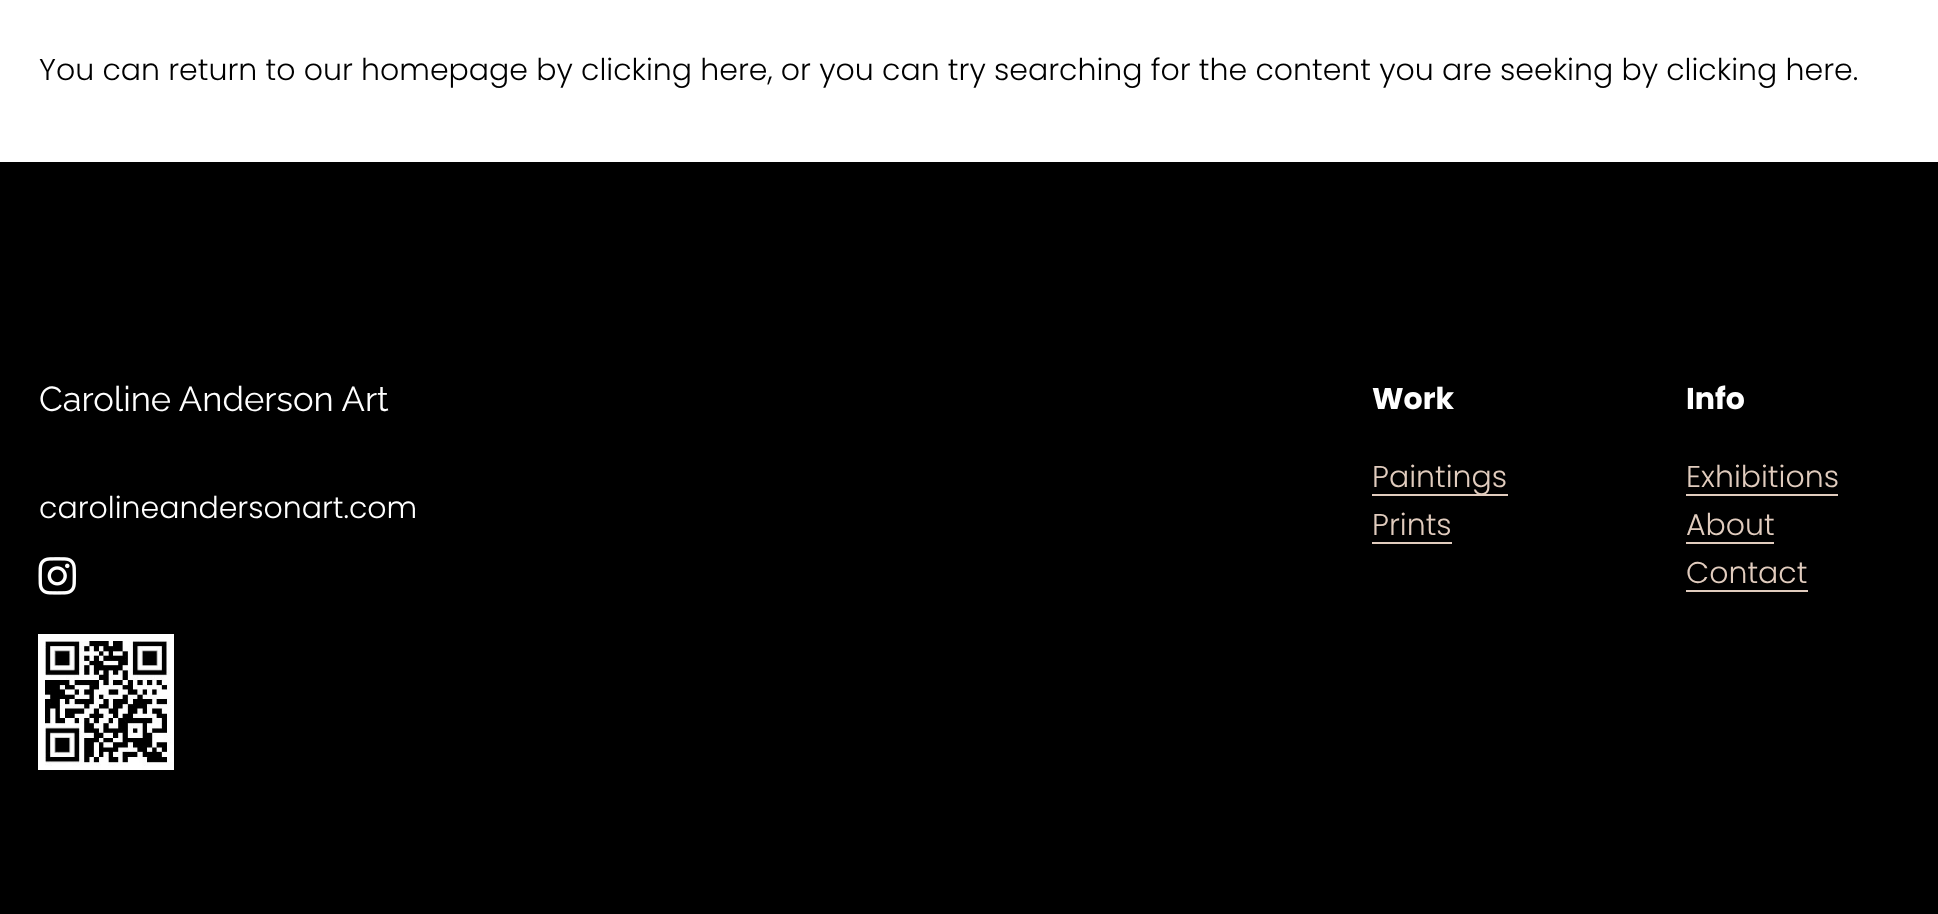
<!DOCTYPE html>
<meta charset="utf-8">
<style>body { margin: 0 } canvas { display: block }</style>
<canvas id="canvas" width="1938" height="914"></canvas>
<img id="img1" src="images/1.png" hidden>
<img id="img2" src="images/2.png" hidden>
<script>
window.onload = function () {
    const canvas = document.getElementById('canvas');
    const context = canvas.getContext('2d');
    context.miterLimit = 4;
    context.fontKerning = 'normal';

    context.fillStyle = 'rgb(255, 255, 255)';
    context.fillRect(0, 0, 1938, 914);
    context.fillStyle = 'rgb(0, 0, 0)';
    context.fillRect(0, 162, 1938, 752);
    context.fillStyle = 'rgb(225, 204, 190)';
    context.fillRect(1372, 494, 136, 2);
    context.fillRect(1372, 542, 80, 2);
    context.fillRect(1686, 494, 152, 2);
    context.fillRect(1686, 542, 88, 2);
    context.fillRect(1686, 590, 122, 2);
    context.drawImage(document.getElementById('img1'), 38, 557, 38, 38);
    context.drawImage(document.getElementById('img2'), 38, 634, 136, 136);
    context.font = '300 30px Poppins';
    context.fillStyle = 'rgb(0, 0, 0)';
    context.fillText('You can return to our homepage by clicking here, or you can try searching for the content you are seeking by clicking here.', 39, 80);
    context.font = '34.6px Raleway';
    context.fillStyle = 'rgb(255, 255, 255)';
    context.fillText('Caroline Anderson Art', 39, 411);
    context.font = '300 30px Poppins';
    context.fillText('carolineandersonart.com', 39, 518);
    context.font = 'bold 30px Poppins';
    context.fillText('Work', 1372, 409);
    context.font = '300 30px Poppins';
    context.fillStyle = 'rgb(225, 204, 190)';
    context.fillText('Paintings', 1372, 487);
    context.fillText('Prints', 1372, 535);
    context.font = 'bold 30px Poppins';
    context.fillStyle = 'rgb(255, 255, 255)';
    context.fillText('Info', 1686, 409);
    context.font = '300 30px Poppins';
    context.fillStyle = 'rgb(225, 204, 190)';
    context.fillText('Exhibitions', 1686, 487);
    context.fillText('About', 1686, 535);
    context.fillText('Contact', 1686, 583);
};
</script>
